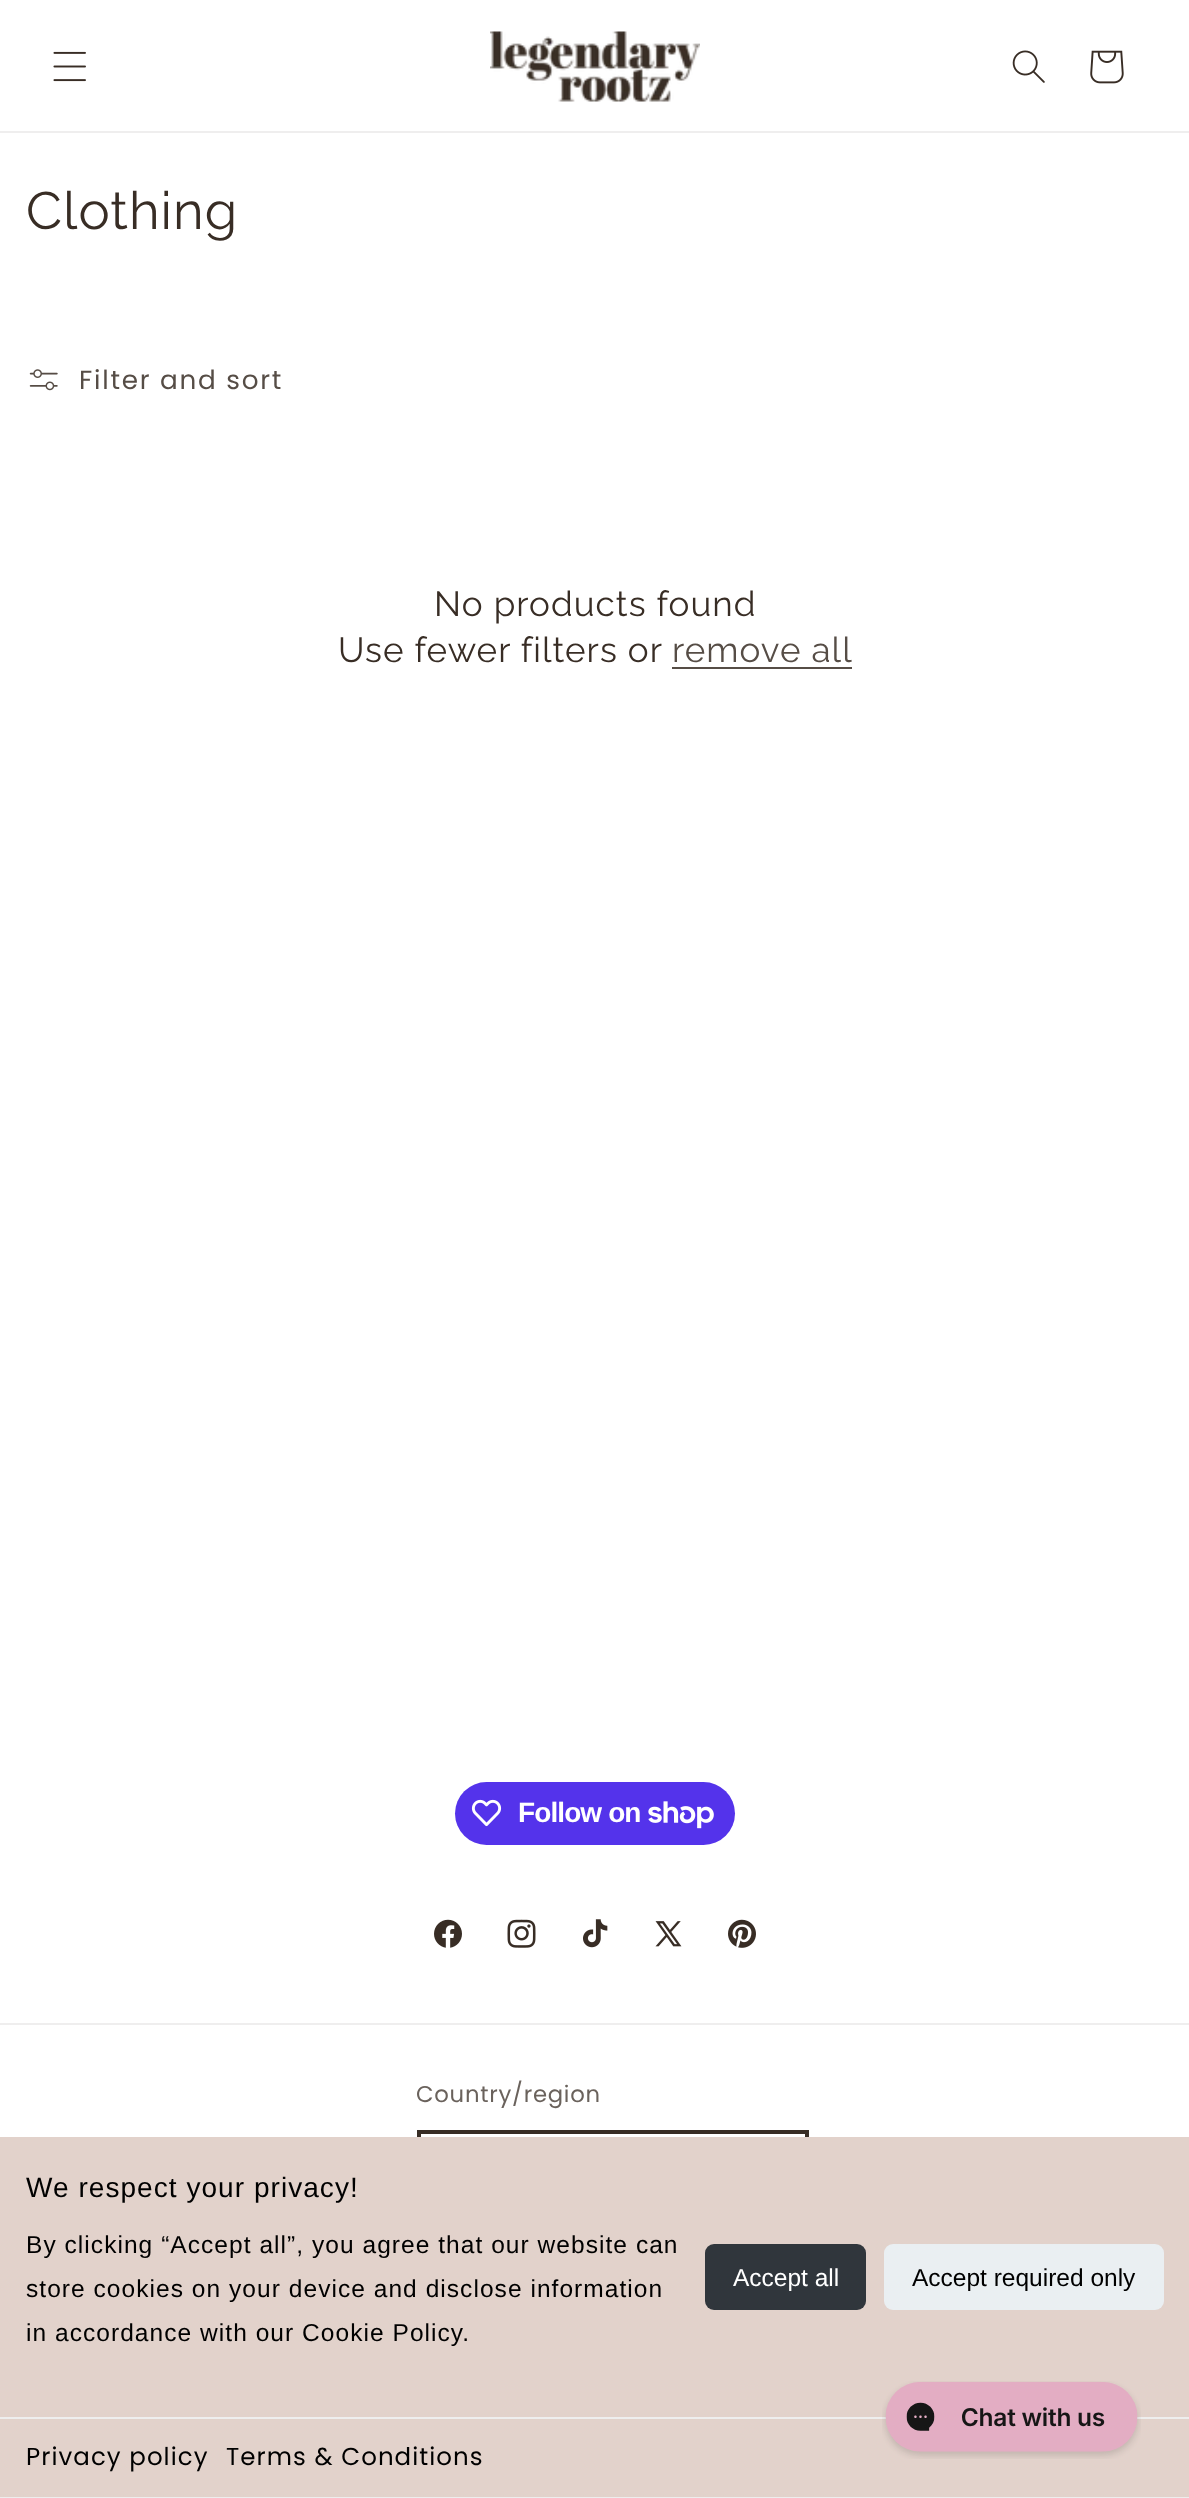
<!DOCTYPE html>
<meta charset="utf-8">
<style>body { margin: 0 } canvas { display: block }</style>
<canvas id="canvas" width="1189" height="2498"></canvas>
<img id="img1" src="images/1.png" hidden>
<img id="img2" src="images/2.png" hidden>
<img id="img3" src="images/3.png" hidden>
<img id="img4" src="images/4.png" hidden>
<img id="img5" src="images/5.png" hidden>
<img id="img6" src="images/6.png" hidden>
<img id="img7" src="images/7.png" hidden>
<img id="img8" src="images/8.png" hidden>
<img id="img9" src="images/9.png" hidden>
<img id="img10" src="images/10.png" hidden>
<img id="img11" src="images/11.png" hidden>
<img id="img12" src="images/12.png" hidden>
<img id="img13" src="images/13.png" hidden>
<script>
window.onload = function () {
    const canvas = document.getElementById('canvas');
    const context = canvas.getContext('2d');
    context.miterLimit = 4;
    context.fontKerning = 'normal';

    context.fillStyle = 'rgb(255, 255, 255)';
    context.fillRect(0, 0, 1189, 2498);
    context.fillStyle = 'rgb(239, 238, 238)';
    context.fillRect(0, 131, 1189, 2);
    context.drawImage(document.getElementById('img1'), 53, 51, 33, 31);
    context.drawImage(document.getElementById('img2'), 490, 31, 210, 71);
    context.drawImage(document.getElementById('img3'), 1012, 50, 33, 33);
    context.drawImage(document.getElementById('img4'), 1090, 50, 34, 34);
    context.drawImage(document.getElementById('img5'), 29, 369, 29, 22);
    context.fillStyle = 'rgb(86, 77, 70)';
    context.fillRect(672, 667, 180, 2);
    context.fillStyle = 'rgb(84, 51, 235)';
    context.beginPath();
    context.roundRect(455, 1782, 280, 63, 31.5);
    context.fill();
    context.drawImage(document.getElementById('img6'), 471, 1799, 31, 28);
    context.drawImage(document.getElementById('img7'), 648, 1801, 66, 28);
    context.drawImage(document.getElementById('img8'), 434, 1919, 28, 29);
    context.drawImage(document.getElementById('img9'), 507, 1919, 29, 29);
    context.drawImage(document.getElementById('img10'), 583, 1919, 25, 29);
    context.drawImage(document.getElementById('img11'), 655, 1921, 27, 26);
    context.drawImage(document.getElementById('img12'), 728, 1919, 28, 29);
    context.fillStyle = 'rgb(239, 238, 238)';
    context.fillRect(0, 2023, 1189, 2);
    context.strokeStyle = 'rgb(56, 45, 37)';
    context.lineWidth = 4;
    context.strokeRect(419, 2132, 388, 73);
    context.fillStyle = 'rgb(226, 210, 203)';
    context.fillRect(0, 2137, 1189, 360);
    context.fillStyle = 'rgb(48, 54, 60)';
    context.beginPath();
    context.roundRect(705, 2244, 161, 66, 9);
    context.fill();
    context.fillStyle = 'rgb(234, 239, 242)';
    context.beginPath();
    context.roundRect(884, 2244, 280, 66, 9);
    context.fill();
    context.fillStyle = 'rgb(238, 238, 238)';
    context.fillRect(0, 2417, 1189, 2);
    context.fillRect(0, 2497, 1189, 1);
    context.drawImage(document.getElementById('img13'), 882, 2381, 259, 78);
    context.letterSpacing = '1.05px';
    context.font = '52.5px Raleway';
    context.fillStyle = 'rgb(56, 45, 37)';
    context.fillText('Clothing', 26, 229);
    context.letterSpacing = '1.75px';
    context.font = '26.25px Poppins';
    context.fillStyle = 'rgb(86, 77, 70)';
    context.fillText('Filter and sort', 79, 389);
    context.letterSpacing = '1.05px';
    context.font = '35px Raleway';
    context.fillStyle = 'rgb(56, 45, 37)';
    context.fillText('No products found', 434, 616);
    context.fillText('Use fewer filters or', 338, 662);
    context.fillStyle = 'rgb(86, 77, 70)';
    context.fillText('remove all', 672, 662);
    context.letterSpacing = '-0.9px';
    context.font = 'bold 28px Liberation Sans';
    context.fillStyle = 'rgb(255, 255, 255)';
    context.fillText('Follow on', 518, 1822);
    context.letterSpacing = '0.75px';
    context.font = '22.75px Poppins';
    context.fillStyle = 'rgb(106, 98, 92)';
    context.fillText('Country/region', 416, 2102);
    context.letterSpacing = '1.05px';
    context.font = '28px Liberation Sans';
    context.fillStyle = 'rgb(0, 0, 0)';
    context.fillText('We respect your privacy!', 26, 2197);
    context.font = '24.5px Liberation Sans';
    context.fillText('By clicking “Accept all”, you agree that our website can', 26, 2253);
    context.fillText('store cookies on your device and disclose information', 26, 2297);
    context.fillText('in accordance with our Cookie Policy.', 26, 2341);
    context.letterSpacing = '0px';
    context.fillStyle = 'rgb(255, 255, 255)';
    context.fillText('Accept all', 733, 2286);
    context.fillStyle = 'rgb(0, 0, 0)';
    context.fillText('Accept required only', 912, 2286);
    context.letterSpacing = '1.05px';
    context.font = '24.5px Poppins';
    context.fillText('Privacy policy', 26, 2465);
    context.fillText('Terms & Conditions', 226, 2465);
};
</script>
